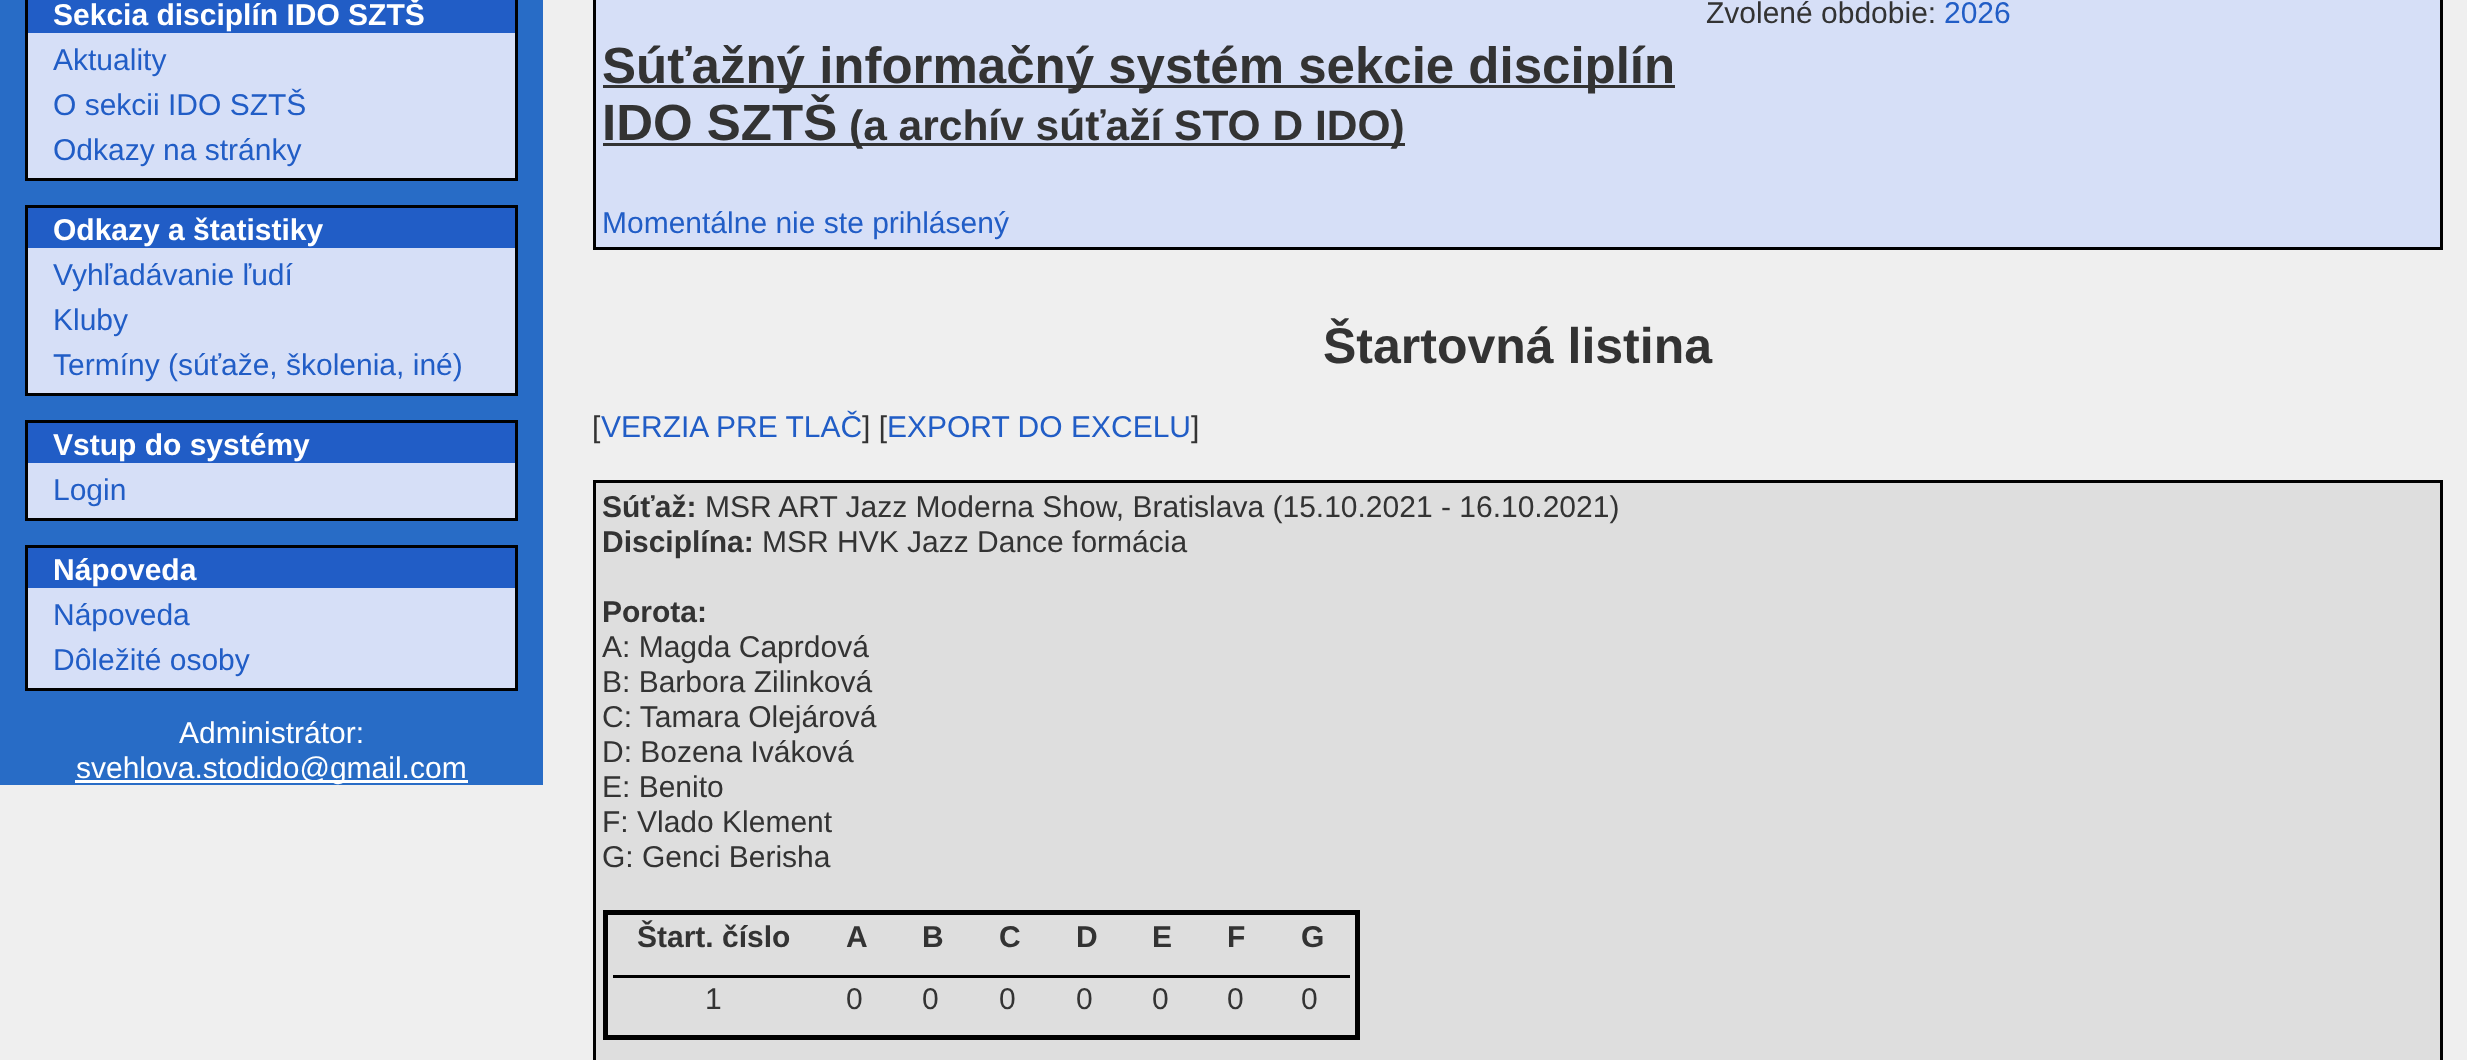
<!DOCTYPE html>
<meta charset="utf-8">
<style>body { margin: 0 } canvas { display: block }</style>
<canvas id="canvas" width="2467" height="1060"></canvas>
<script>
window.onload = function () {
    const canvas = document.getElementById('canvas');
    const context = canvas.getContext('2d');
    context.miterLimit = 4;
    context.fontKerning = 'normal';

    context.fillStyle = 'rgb(239, 239, 239)';
    context.fillRect(0, 0, 2467, 1060);
    context.fillStyle = 'rgb(40, 108, 198)';
    context.fillRect(0, 0, 543, 785);
    context.fillStyle = 'rgb(33, 93, 198)';
    context.fillRect(28, 0, 487, 33);
    context.fillStyle = 'rgb(0, 0, 0)';
    context.fillRect(515, 0, 3, 180);
    context.fillRect(25, 0, 3, 33);
    context.fillStyle = 'rgb(214, 223, 247)';
    context.fillRect(28, 33, 487, 145);
    context.fillStyle = 'rgb(0, 0, 0)';
    context.fillRect(25, 178, 493, 3);
    context.fillRect(25, 33, 3, 147);
    context.fillStyle = 'rgb(33, 93, 198)';
    context.fillRect(28, 208, 487, 40);
    context.fillStyle = 'rgb(0, 0, 0)';
    context.fillRect(25, 205, 493, 3);
    context.fillRect(515, 205, 3, 190);
    context.fillRect(25, 205, 3, 43);
    context.fillStyle = 'rgb(214, 223, 247)';
    context.fillRect(28, 248, 487, 145);
    context.fillStyle = 'rgb(0, 0, 0)';
    context.fillRect(25, 393, 493, 3);
    context.fillRect(25, 248, 3, 147);
    context.fillStyle = 'rgb(33, 93, 198)';
    context.fillRect(28, 423, 487, 40);
    context.fillStyle = 'rgb(0, 0, 0)';
    context.fillRect(25, 420, 493, 3);
    context.fillRect(515, 420, 3, 100);
    context.fillRect(25, 420, 3, 43);
    context.fillStyle = 'rgb(214, 223, 247)';
    context.fillRect(28, 463, 487, 55);
    context.fillStyle = 'rgb(0, 0, 0)';
    context.fillRect(25, 518, 493, 3);
    context.fillRect(25, 463, 3, 57);
    context.fillStyle = 'rgb(33, 93, 198)';
    context.fillRect(28, 548, 487, 40);
    context.fillStyle = 'rgb(0, 0, 0)';
    context.fillRect(25, 545, 493, 3);
    context.fillRect(515, 545, 3, 145);
    context.fillRect(25, 545, 3, 43);
    context.fillStyle = 'rgb(214, 223, 247)';
    context.fillRect(28, 588, 487, 100);
    context.fillStyle = 'rgb(0, 0, 0)';
    context.fillRect(25, 688, 493, 3);
    context.fillRect(25, 588, 3, 102);
    context.fillStyle = 'rgb(255, 255, 255)';
    context.fillRect(75, 780, 393, 3);
    context.fillStyle = 'rgb(214, 223, 247)';
    context.beginPath();
    context.rect(594.5, -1.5, 1847, 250);
    context.fill();
    context.strokeStyle = 'rgb(0, 0, 0)';
    context.lineWidth = 3;
    context.stroke();
    context.fillStyle = 'rgb(51, 51, 51)';
    context.fillRect(603, 85, 1072, 3);
    context.fillRect(603, 143, 802, 3);
    context.fillStyle = 'rgb(222, 222, 222)';
    context.beginPath();
    context.rect(594.5, 481.5, 1847, 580);
    context.fill();
    context.stroke();
    context.lineWidth = 5;
    context.strokeRect(605.5, 912.5, 752, 125);
    context.fillStyle = 'rgb(0, 0, 0)';
    context.fillRect(613, 975, 737, 3);
    context.font = 'bold 30px Liberation Sans';
    context.fillStyle = 'rgb(255, 255, 255)';
    context.fillText('Sekcia disciplín IDO SZTŠ', 53, 25);
    context.font = '30px Liberation Sans';
    context.fillStyle = 'rgb(33, 93, 198)';
    context.fillText('Aktuality', 53, 70);
    context.fillText('O sekcii IDO SZTŠ', 53, 115);
    context.fillText('Odkazy na stránky', 53, 160);
    context.font = 'bold 30px Liberation Sans';
    context.fillStyle = 'rgb(255, 255, 255)';
    context.fillText('Odkazy a štatistiky', 53, 240);
    context.font = '30px Liberation Sans';
    context.fillStyle = 'rgb(33, 93, 198)';
    context.fillText('Vyhľadávanie ľudí', 53, 285);
    context.fillText('Kluby', 53, 330);
    context.fillText('Termíny (súťaže, školenia, iné)', 53, 375);
    context.font = 'bold 30px Liberation Sans';
    context.fillStyle = 'rgb(255, 255, 255)';
    context.fillText('Vstup do systémy', 53, 455);
    context.font = '30px Liberation Sans';
    context.fillStyle = 'rgb(33, 93, 198)';
    context.fillText('Login', 53, 500);
    context.font = 'bold 30px Liberation Sans';
    context.fillStyle = 'rgb(255, 255, 255)';
    context.fillText('Nápoveda', 53, 580);
    context.font = '30px Liberation Sans';
    context.fillStyle = 'rgb(33, 93, 198)';
    context.fillText('Nápoveda', 53, 625);
    context.fillText('Dôležité osoby', 53, 670);
    context.fillStyle = 'rgb(255, 255, 255)';
    context.fillText('Administrátor:', 179, 743);
    context.fillText('svehlova.stodido@gmail.com', 76, 778);
    context.fillStyle = 'rgb(51, 51, 51)';
    context.fillText('Zvolené obdobie:', 1706, 23);
    context.fillStyle = 'rgb(33, 93, 198)';
    context.fillText('2026', 1944, 23);
    context.font = 'bold 51px Liberation Sans';
    context.fillStyle = 'rgb(51, 51, 51)';
    context.fillText('Súťažný informačný systém sekcie disciplín', 602, 83);
    context.fillText('IDO SZTŠ', 602, 140);
    context.font = 'bold 42.5px Liberation Sans';
    context.fillText('(a archív súťaží STO D IDO)', 849, 140);
    context.font = '30px Liberation Sans';
    context.fillStyle = 'rgb(33, 93, 198)';
    context.fillText('Momentálne nie ste prihlásený', 602, 233);
    context.font = 'bold 50px Liberation Sans';
    context.fillStyle = 'rgb(51, 51, 51)';
    context.fillText('Štartovná listina', 1323, 363);
    context.font = '30px Liberation Sans';
    context.fillText('[', 592, 437);
    context.fillStyle = 'rgb(33, 93, 198)';
    context.fillText('VERZIA PRE TLAČ', 601, 437);
    context.fillStyle = 'rgb(51, 51, 51)';
    context.fillText('] [', 862, 437);
    context.fillStyle = 'rgb(33, 93, 198)';
    context.fillText('EXPORT DO EXCELU', 887, 437);
    context.fillStyle = 'rgb(51, 51, 51)';
    context.fillText(']', 1191, 437);
    context.font = 'bold 30px Liberation Sans';
    context.fillText('Súťaž:', 602, 517);
    context.font = '30px Liberation Sans';
    context.fillText('MSR ART Jazz Moderna Show, Bratislava (15.10.2021 - 16.10.2021)', 705, 517);
    context.font = 'bold 30px Liberation Sans';
    context.fillText('Disciplína:', 602, 552);
    context.font = '30px Liberation Sans';
    context.fillText('MSR HVK Jazz Dance formácia', 762, 552);
    context.font = 'bold 30px Liberation Sans';
    context.fillText('Porota:', 602, 622);
    context.font = '30px Liberation Sans';
    context.fillText('A: Magda Caprdová', 602, 657);
    context.fillText('B: Barbora Zilinková', 602, 692);
    context.fillText('C: Tamara Olejárová', 602, 727);
    context.fillText('D: Bozena Iváková', 602, 762);
    context.fillText('E: Benito', 602, 797);
    context.fillText('F: Vlado Klement', 602, 832);
    context.fillText('G: Genci Berisha', 602, 867);
    context.font = 'bold 30px Liberation Sans';
    context.fillText('Štart. číslo', 637, 947);
    context.fillText('A', 846, 947);
    context.fillText('B', 922, 947);
    context.fillText('C', 999, 947);
    context.fillText('D', 1076, 947);
    context.fillText('E', 1152, 947);
    context.fillText('F', 1227, 947);
    context.fillText('G', 1301, 947);
    context.font = '30px Liberation Sans';
    context.fillText('1', 705, 1009);
    context.fillText('0', 846, 1009);
    context.fillText('0', 922, 1009);
    context.fillText('0', 999, 1009);
    context.fillText('0', 1076, 1009);
    context.fillText('0', 1152, 1009);
    context.fillText('0', 1227, 1009);
    context.fillText('0', 1301, 1009);
};
</script>
